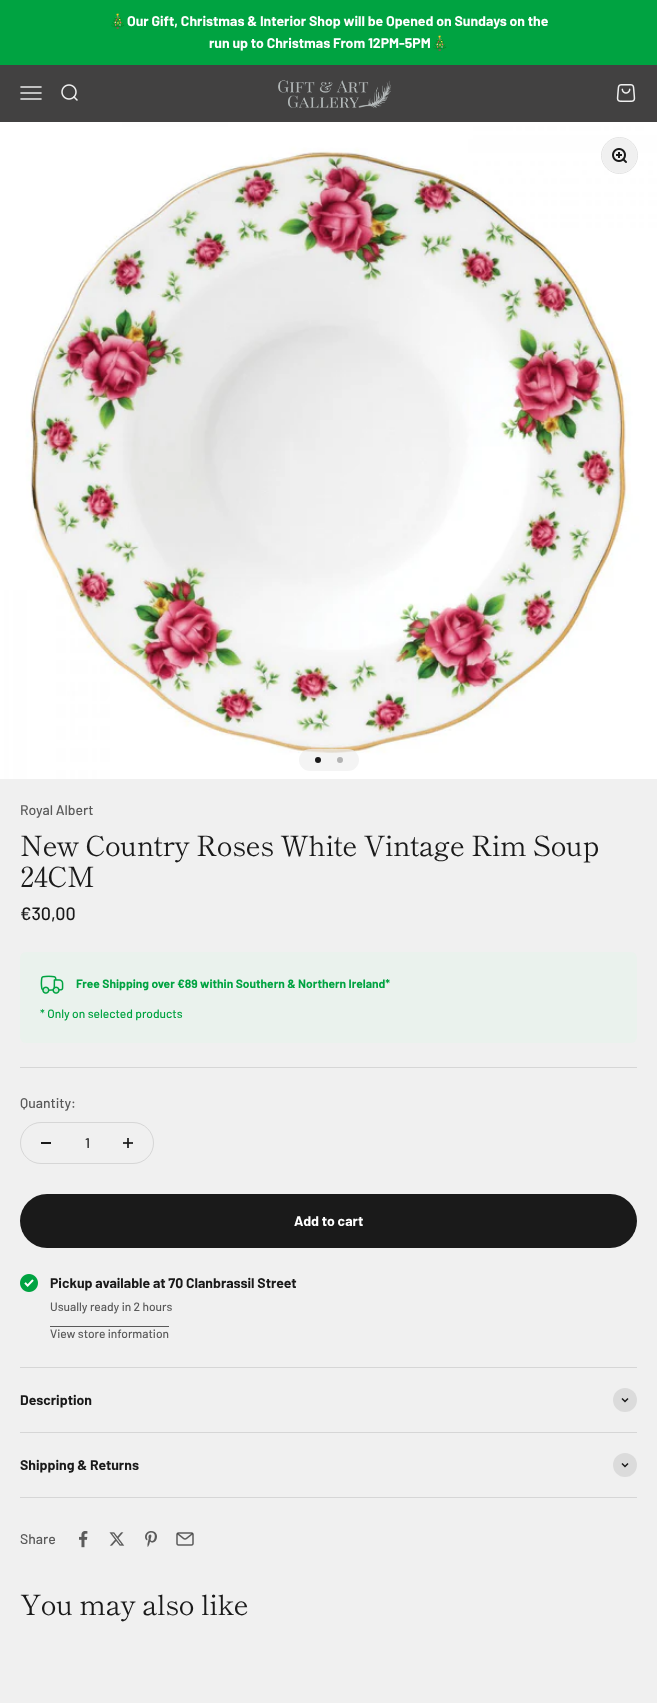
<!DOCTYPE html>
<meta charset="utf-8">
<style>body { margin: 0 } canvas { display: block }</style>
<canvas id="canvas" width="657" height="1703"></canvas>
<img id="img1" src="images/1.png" hidden>
<img id="img2" src="images/2.png" hidden>
<img id="img3" src="images/3.png" hidden>
<img id="img4" src="images/4.png" hidden>
<img id="img5" src="images/5.png" hidden>
<img id="img6" src="images/6.png" hidden>
<img id="img7" src="images/7.png" hidden>
<img id="img8" src="images/8.png" hidden>
<img id="img9" src="images/9.png" hidden>
<img id="img10" src="images/10.png" hidden>
<img id="img11" src="images/11.png" hidden>
<img id="img12" src="images/12.png" hidden>
<script>
window.onload = function () {
    const canvas = document.getElementById('canvas');
    const context = canvas.getContext('2d');
    context.miterLimit = 4;
    context.fontKerning = 'normal';

    context.fillStyle = 'rgb(240, 240, 240)';
    context.fillRect(0, 0, 657, 1703);
    context.fillStyle = 'rgb(58, 58, 58)';
    context.fillRect(123, 1142, 10, 2);
    context.fillStyle = 'rgb(0, 163, 65)';
    context.fillRect(0, 0, 657, 65);
    context.fillStyle = 'rgb(66, 65, 65)';
    context.fillRect(0, 65, 657, 57);
    context.drawImage(document.getElementById('img1'), 20, 86, 22, 14);
    context.drawImage(document.getElementById('img2'), 61, 84, 17, 17);
    context.drawImage(document.getElementById('img3'), 278, 80, 113, 28);
    context.drawImage(document.getElementById('img4'), 616, 84, 20, 18);
    context.drawImage(document.getElementById('img5'), 0, 122, 657, 657);
    context.beginPath();
    context.arc(619.5, 155.5, 18, 0, 2 * Math.PI);
    context.strokeStyle = 'rgb(227, 227, 227)';
    context.stroke();
    context.fillStyle = 'rgb(240, 240, 240)';
    context.beginPath();
    context.arc(619.5, 155.5, 17.5, 0, 2 * Math.PI);
    context.fill();
    context.drawImage(document.getElementById('img6'), 612, 148, 15, 15);
    context.fillStyle = 'rgba(240, 240, 240, 0.7)';
    context.beginPath();
    context.roundRect(299, 749, 60, 22, 11);
    context.fill();
    context.fillStyle = 'rgb(26, 26, 26)';
    context.beginPath();
    context.arc(318, 760, 3, 0, 2 * Math.PI);
    context.fill();
    context.fillStyle = 'rgb(179, 179, 179)';
    context.beginPath();
    context.arc(340, 760, 3, 0, 2 * Math.PI);
    context.fill();
    context.fillStyle = 'rgb(234, 242, 237)';
    context.beginPath();
    context.roundRect(20, 952, 617, 91, 6);
    context.fill();
    context.drawImage(document.getElementById('img7'), 40, 975, 24, 19);
    context.fillStyle = 'rgb(214, 214, 214)';
    context.fillRect(20, 1067, 617, 1);
    context.beginPath();
    context.roundRect(20.5, 1122.5, 133, 41, 20.5);
    context.strokeStyle = 'rgb(214, 214, 214)';
    context.stroke();
    context.fillStyle = 'rgb(26, 26, 26)';
    context.fillRect(41, 1142, 10, 2);
    context.fillStyle = 'rgb(58, 58, 58)';
    context.fillRect(127, 1138, 2, 10);
    context.fillStyle = 'rgb(31, 31, 31)';
    context.fillRect(127, 1142, 2, 2);
    context.fillStyle = 'rgb(26, 26, 26)';
    context.beginPath();
    context.roundRect(20, 1194, 617, 54, 27);
    context.fill();
    context.drawImage(document.getElementById('img8'), 20, 1274, 18, 18);
    context.fillStyle = 'rgb(90, 90, 90)';
    context.fillRect(50, 1326, 119, 1);
    context.fillStyle = 'rgb(214, 214, 214)';
    context.fillRect(20, 1367, 617, 1);
    context.fillRect(20, 1432, 617, 1);
    context.fillStyle = 'rgb(219, 219, 219)';
    context.beginPath();
    context.arc(625, 1400, 12, 0, 2 * Math.PI);
    context.fill();
    context.beginPath();
    context.moveTo(622, 1398.5);
    context.lineTo(625, 1401.5);
    context.lineTo(628, 1398.5);
    context.strokeStyle = 'rgb(26, 26, 26)';
    context.lineWidth = 1.5;
    context.stroke();
    context.fillStyle = 'rgb(214, 214, 214)';
    context.fillRect(20, 1497, 617, 1);
    context.fillStyle = 'rgb(219, 219, 219)';
    context.beginPath();
    context.arc(625, 1465, 12, 0, 2 * Math.PI);
    context.fill();
    context.beginPath();
    context.moveTo(622, 1463.5);
    context.lineTo(625, 1466.5);
    context.lineTo(628, 1463.5);
    context.stroke();
    context.drawImage(document.getElementById('img9'), 79, 1531, 9, 17);
    context.drawImage(document.getElementById('img10'), 109, 1532, 16, 14);
    context.drawImage(document.getElementById('img11'), 145, 1531, 12, 16);
    context.drawImage(document.getElementById('img12'), 176, 1532, 18, 14);
    context.font = 'bold 14px Noto Color Emoji';
    context.fillStyle = 'rgb(255, 255, 255)';
    context.fillText('🎄', 109, 26);
    context.font = 'bold 14px Barlow';
    context.fillText('Our Gift, Christmas & Interior Shop will be Opened on Sundays on the', 127, 26);
    context.fillText('run up to Christmas From 12PM-5PM', 209, 48);
    context.font = 'bold 14px Noto Color Emoji';
    context.fillText('🎄', 431, 48);
    context.font = '500 14px Barlow';
    context.fillStyle = 'rgb(90, 90, 90)';
    context.fillText('Royal Albert', 20, 815);
    context.letterSpacing = '-0.55px';
    context.font = '28px Shippori Mincho';
    context.fillStyle = 'rgb(26, 26, 26)';
    context.fillText('New Country Roses White Vintage Rim Soup', 20, 856);
    context.fillText('24CM', 20, 887);
    context.letterSpacing = '0px';
    context.font = '500 18px Barlow';
    context.fillText('€30,00', 20, 920);
    context.font = 'bold 12px Barlow';
    context.fillStyle = 'rgb(0, 163, 65)';
    context.fillText('Free Shipping over €89 within Southern & Northern Ireland*', 76, 988);
    context.font = '500 12px Barlow';
    context.fillText('* Only on selected products', 40, 1018);
    context.font = '500 14px Barlow';
    context.fillStyle = 'rgb(90, 90, 90)';
    context.fillText('Quantity:', 20, 1108);
    context.fillStyle = 'rgb(26, 26, 26)';
    context.fillText('1', 85, 1148);
    context.font = 'bold 14px Barlow';
    context.fillStyle = 'rgb(255, 255, 255)';
    context.fillText('Add to cart', 294, 1226);
    context.fillStyle = 'rgb(26, 26, 26)';
    context.fillText('Pickup available at 70 Clanbrassil Street', 50, 1288);
    context.font = '500 12px Barlow';
    context.fillStyle = 'rgb(90, 90, 90)';
    context.fillText('Usually ready in 2 hours', 50, 1311);
    context.fillText('View store information', 50, 1338);
    context.font = 'bold 14px Barlow';
    context.fillStyle = 'rgb(26, 26, 26)';
    context.fillText('Description', 20, 1405);
    context.fillText('Shipping & Returns', 20, 1470);
    context.font = '500 14px Barlow';
    context.fillStyle = 'rgb(90, 90, 90)';
    context.fillText('Share', 20, 1544);
    context.letterSpacing = '-0.55px';
    context.font = '28px Shippori Mincho';
    context.fillStyle = 'rgb(26, 26, 26)';
    context.fillText('You may also like', 20, 1615);
};
</script>
